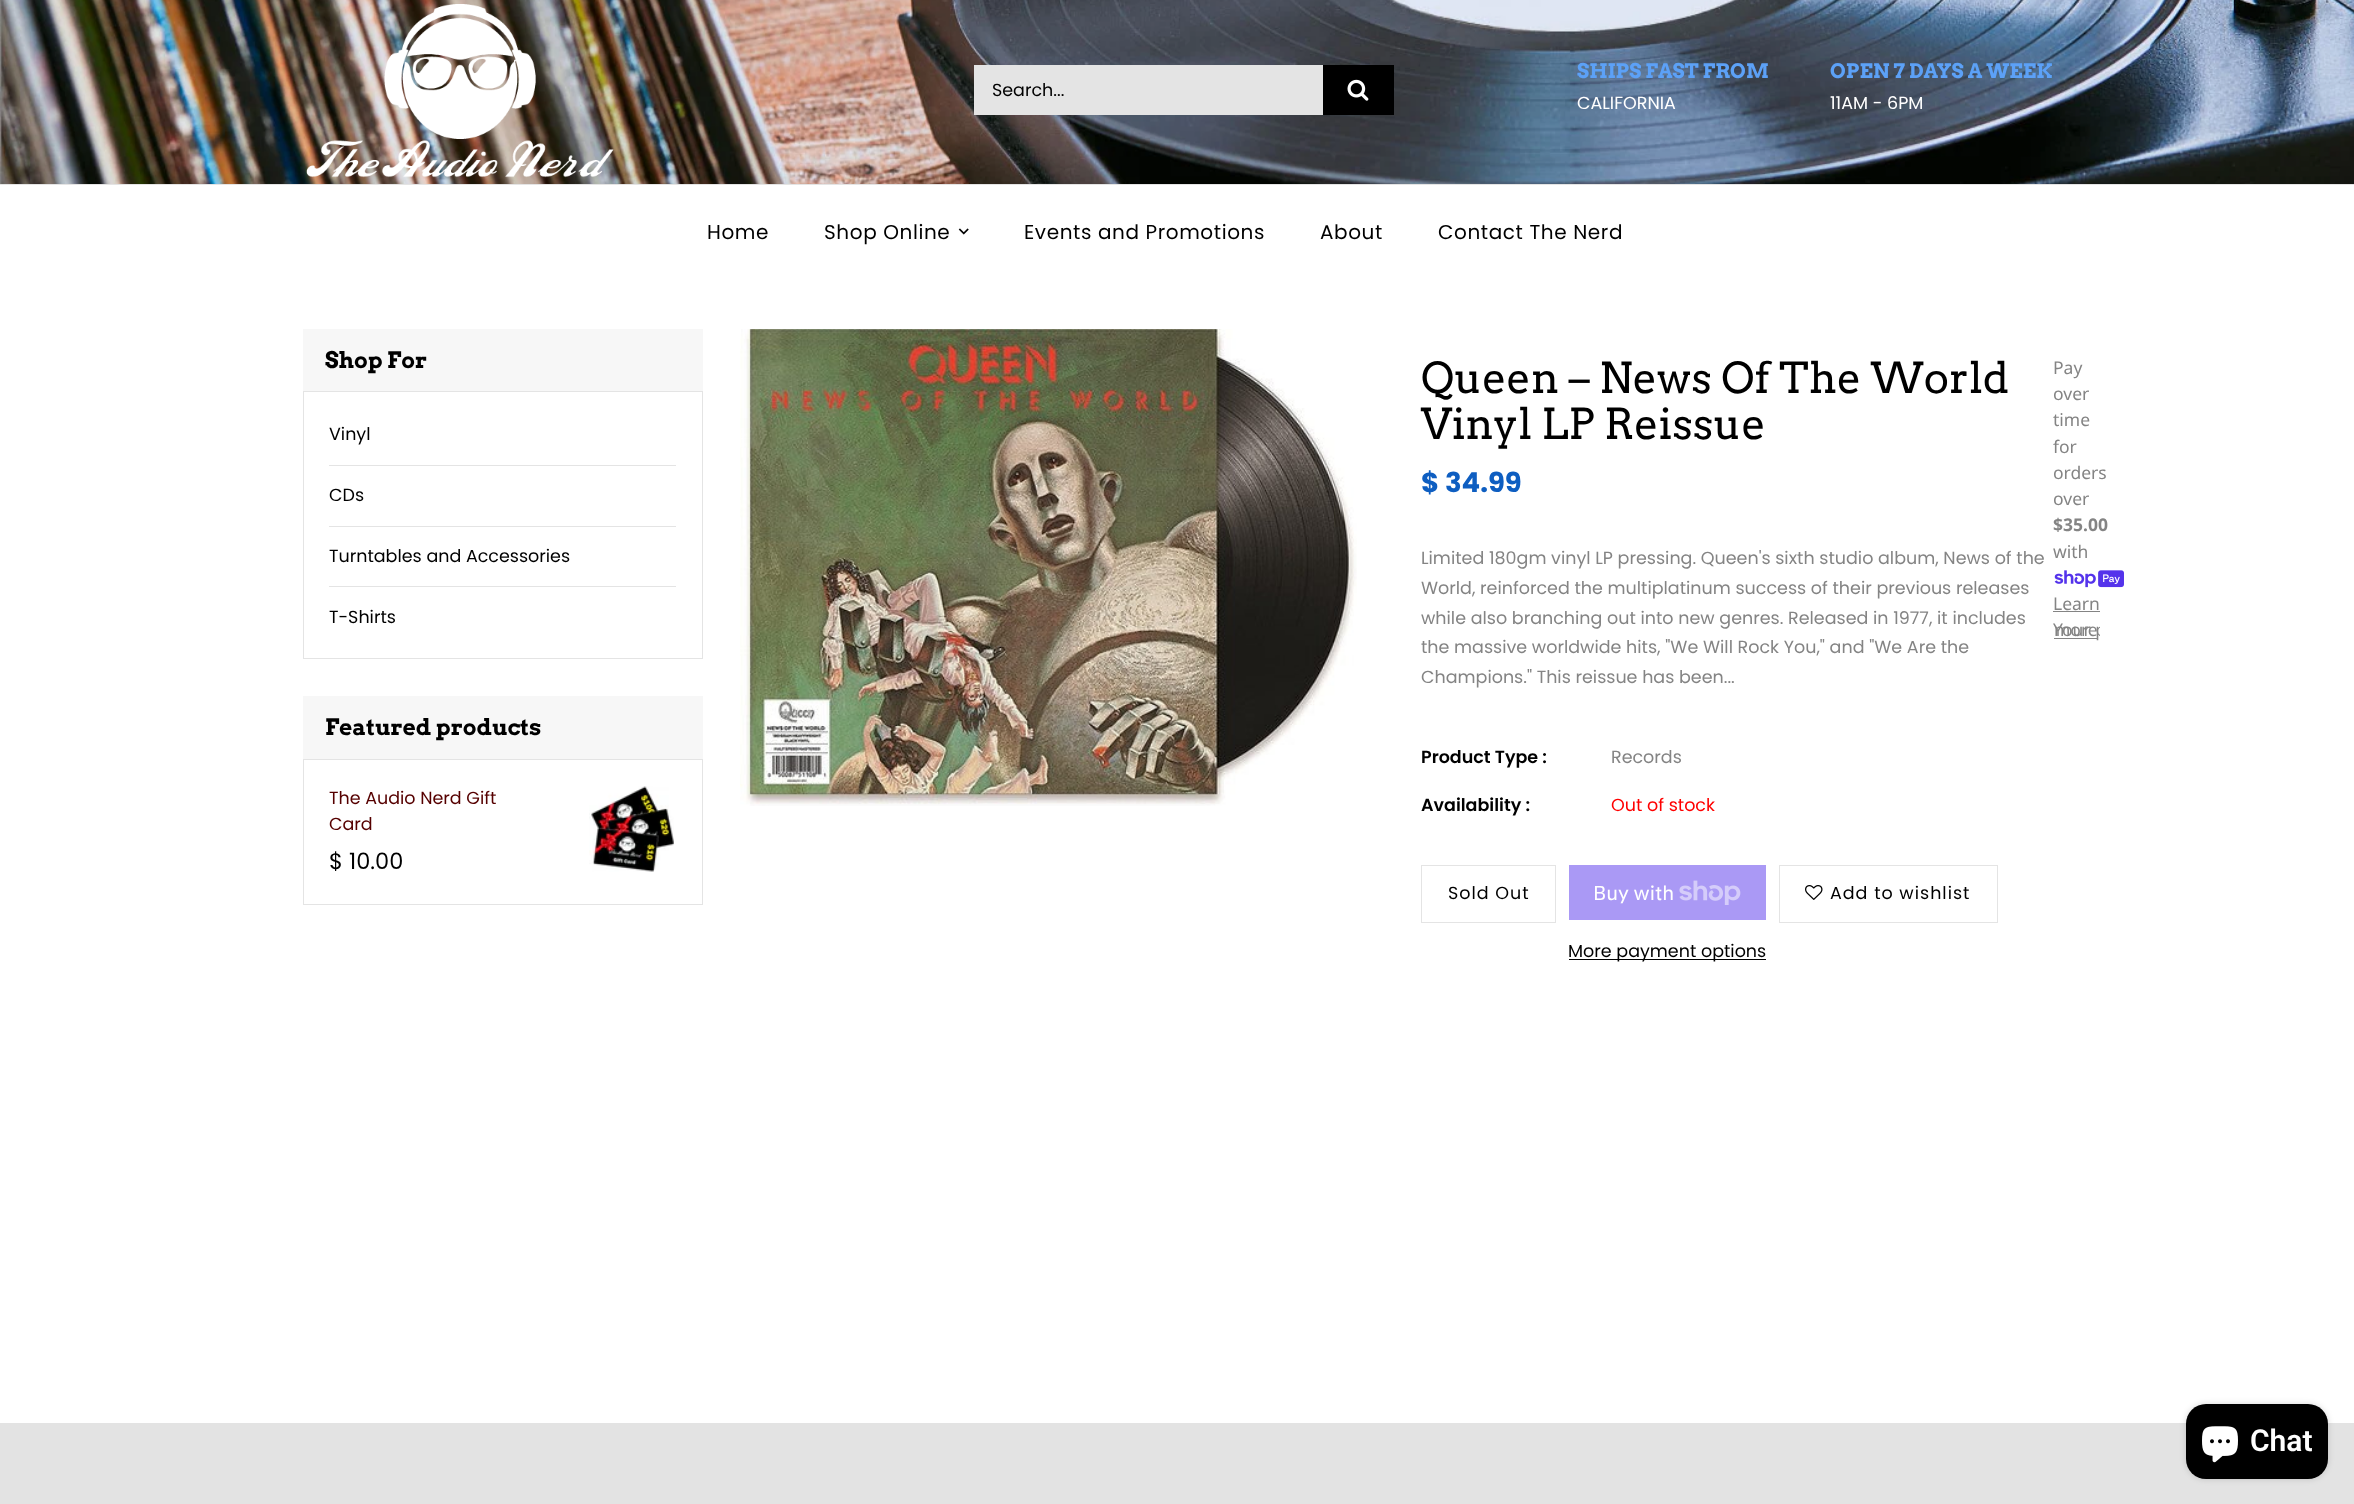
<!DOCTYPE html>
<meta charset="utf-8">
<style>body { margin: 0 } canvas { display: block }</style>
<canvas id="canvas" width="2354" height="1504"></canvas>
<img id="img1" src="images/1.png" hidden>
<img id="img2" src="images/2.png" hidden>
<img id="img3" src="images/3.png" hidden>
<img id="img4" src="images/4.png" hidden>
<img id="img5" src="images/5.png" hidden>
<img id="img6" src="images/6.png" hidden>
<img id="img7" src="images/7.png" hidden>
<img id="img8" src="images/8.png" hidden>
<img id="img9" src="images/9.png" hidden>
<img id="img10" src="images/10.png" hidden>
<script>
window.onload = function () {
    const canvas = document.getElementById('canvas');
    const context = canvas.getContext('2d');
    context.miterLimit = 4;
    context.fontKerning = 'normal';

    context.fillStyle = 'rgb(255, 255, 255)';
    context.fillRect(0, 0, 2354, 1504);
    context.drawImage(document.getElementById('img1'), 0, 0, 2354, 184);
    context.fillStyle = 'rgb(228, 228, 228)';
    context.fillRect(0, 184, 2354, 1);
    context.drawImage(document.getElementById('img2'), 306, 4, 308, 174);
    context.fillRect(974, 65, 349, 50);
    context.fillStyle = 'rgb(0, 0, 0)';
    context.fillRect(1323, 65, 71, 50);
    context.drawImage(document.getElementById('img3'), 1347, 79, 22, 22);
    context.drawImage(document.getElementById('img4'), 958, 228, 11, 7);
    context.fillStyle = 'rgb(247, 247, 247)';
    context.fillRect(303, 329, 400, 62);
    context.strokeStyle = 'rgb(228, 228, 228)';
    context.strokeRect(303.5, 391.5, 399, 267);
    context.fillStyle = 'rgb(228, 228, 228)';
    context.fillRect(329, 465, 347, 1);
    context.fillRect(329, 526, 347, 1);
    context.fillRect(329, 586, 347, 1);
    context.fillStyle = 'rgb(247, 247, 247)';
    context.fillRect(303, 696, 400, 63);
    context.strokeRect(303.5, 759.5, 399, 145);
    context.drawImage(document.getElementById('img5'), 589, 786, 85, 86);
    context.drawImage(document.getElementById('img6'), 740, 329, 617, 477);
    context.drawImage(document.getElementById('img7'), 2054, 570, 70, 18);
    context.fillStyle = 'rgb(132, 132, 132)';
    context.fillRect(2053, 611, 47, 1);
    context.fillRect(2054, 638, 44, 1);
    context.strokeRect(1421.5, 865.5, 134, 57);
    context.fillStyle = 'rgb(170, 153, 245)';
    context.fillRect(1569, 865, 197, 55);
    context.drawImage(document.getElementById('img8'), 1679, 880, 62, 25);
    context.fillStyle = 'rgb(0, 0, 0)';
    context.fillRect(1569, 959, 197, 1);
    context.strokeRect(1779.5, 865.5, 218, 57);
    context.drawImage(document.getElementById('img9'), 1805, 885, 18, 15);
    context.fillStyle = 'rgb(227, 227, 227)';
    context.fillRect(0, 1423, 2354, 81);
    context.fillStyle = 'rgba(0, 0, 0, 0.15)';
    context.filter = 'blur(3px)';
    context.beginPath();
    context.roundRect(2186, 1404, 142, 75, 20);
    context.fill();
    context.filter = 'none';
    context.fillStyle = 'rgb(0, 0, 0)';
    context.beginPath();
    context.roundRect(2186, 1404, 142, 75, 20);
    context.fill();
    context.drawImage(document.getElementById('img10'), 2202, 1426, 36, 37);
    context.font = '17.5px Poppins';
    context.fillText('Search...', 992, 96);
    context.font = 'bold 20px Arvo';
    context.fillStyle = 'rgb(92, 161, 247)';
    context.fillText('SHIPS FAST FROM', 1577, 78);
    context.font = '17.5px Poppins';
    context.fillStyle = 'rgb(255, 255, 255)';
    context.fillText('CALIFORNIA', 1577, 109);
    context.font = 'bold 20px Arvo';
    context.fillStyle = 'rgb(92, 161, 247)';
    context.fillText('OPEN 7 DAYS A WEEK', 1830, 78);
    context.font = '17.5px Poppins';
    context.fillStyle = 'rgb(255, 255, 255)';
    context.fillText('11AM - 6PM', 1830, 109);
    context.letterSpacing = '0.6px';
    context.font = '20px Poppins';
    context.fillStyle = 'rgb(0, 0, 0)';
    context.fillText('Home', 707, 239);
    context.fillText('Shop Online', 824, 239);
    context.fillText('Events and Promotions', 1024, 239);
    context.fillText('About', 1320, 239);
    context.fillText('Contact The Nerd', 1438, 239);
    context.letterSpacing = '0px';
    context.font = 'bold 22.5px Arvo';
    context.fillText('Shop For', 325, 368);
    context.font = '17.5px Poppins';
    context.fillText('Vinyl', 329, 440);
    context.fillText('CDs', 329, 501);
    context.fillText('Turntables and Accessories', 329, 562);
    context.fillText('T-Shirts', 329, 623);
    context.font = 'bold 22.5px Arvo';
    context.fillText('Featured products', 325, 735);
    context.font = '17.5px Poppins';
    context.fillStyle = 'rgb(86, 0, 0)';
    context.fillText('The Audio Nerd Gift', 329, 804);
    context.fillText('Card', 329, 830);
    context.font = '22.5px Poppins';
    context.fillStyle = 'rgb(0, 0, 0)';
    context.fillText('$ 10.00', 329, 869);
    context.font = '42.5px Arvo';
    context.fillText('Queen – News Of The World', 1421, 393);
    context.fillText('Vinyl LP Reissue', 1421, 439);
    context.font = '17.5px Noto Sans';
    context.fillStyle = 'rgb(132, 132, 132)';
    context.fillText('Pay', 2053, 374);
    context.fillText('over', 2053, 400);
    context.fillText('time', 2053, 426);
    context.fillText('for', 2053, 453);
    context.fillText('orders', 2053, 479);
    context.fillText('over', 2053, 505);
    context.font = 'bold 17.5px Noto Sans';
    context.fillText('$35.00', 2053, 531);
    context.font = '17.5px Noto Sans';
    context.fillText('with', 2053, 558);
    context.fillText('Learn', 2053, 610);
    context.fillText('more', 2054, 636);
    context.save();
    context.beginPath();
    context.rect(2053, 590, 47, 53);
    context.clip();
    context.fillText('Your p', 2053, 636);
    context.restore();
    context.font = '600 17.5px Poppins';
    context.fillStyle = 'rgb(0, 0, 0)';
    context.fillText('Product Type :', 1421, 763);
    context.font = '17.5px Poppins';
    context.fillStyle = 'rgb(132, 132, 132)';
    context.fillText('Records', 1611, 763);
    context.font = '600 17.5px Poppins';
    context.fillStyle = 'rgb(0, 0, 0)';
    context.fillText('Availability :', 1421, 811);
    context.font = '17.5px Poppins';
    context.fillStyle = 'rgb(255, 0, 0)';
    context.fillText('Out of stock', 1611, 811);
    context.letterSpacing = '1px';
    context.fillStyle = 'rgb(0, 0, 0)';
    context.fillText('Sold Out', 1448, 899);
    context.letterSpacing = '0px';
    context.font = '20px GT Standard';
    context.fillStyle = 'rgb(255, 255, 255)';
    context.fillText('Buy with', 1593, 900);
    context.font = '17.5px Poppins';
    context.fillStyle = 'rgb(0, 0, 0)';
    context.fillText('More payment options', 1568, 957);
    context.font = 'bold 27.5px Poppins';
    context.fillStyle = 'rgb(14, 94, 193)';
    context.fillText('$ 34.99', 1421, 492);
    context.font = '17.5px Poppins';
    context.fillStyle = 'rgb(132, 132, 132)';
    context.fillText('Limited 180gm vinyl LP pressing. Queen\'s sixth studio album, News of the', 1421, 564);
    context.fillText('World, reinforced the multiplatinum success of their previous releases', 1421, 594);
    context.fillText('while also branching out into new genres. Released in 1977, it includes', 1421, 624);
    context.fillText('the massive worldwide hits, "We Will Rock You," and "We Are the', 1421, 653);
    context.fillText('Champions." This reissue has been...', 1421, 683);
    context.letterSpacing = '1px';
    context.fillStyle = 'rgb(0, 0, 0)';
    context.fillText('Add to wishlist', 1830, 899);
    context.letterSpacing = '0px';
    context.font = '600 30px Roboto';
    context.fillStyle = 'rgb(255, 255, 255)';
    context.fillText('Chat', 2250, 1451);
};
</script>
